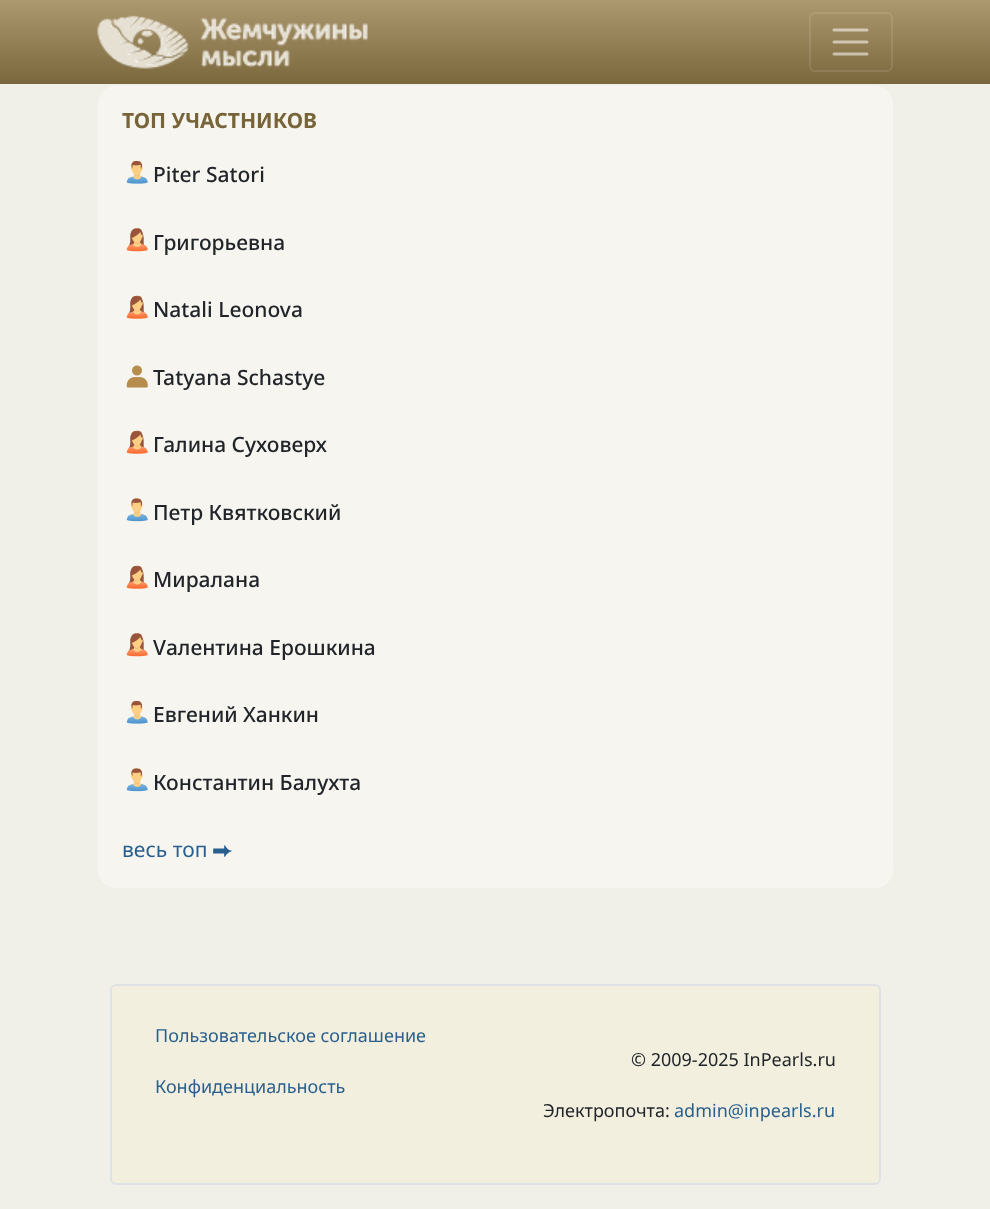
<!DOCTYPE html>
<meta charset="utf-8">
<style>body { margin: 0 } canvas { display: block }</style>
<canvas id="canvas" width="990" height="1209"></canvas>
<img id="img1" src="images/1.png" hidden>
<img id="img2" src="images/2.png" hidden>
<img id="img3" src="images/3.png" hidden>
<img id="img4" src="images/4.png" hidden>
<img id="img5" src="images/5.png" hidden>
<img id="img6" src="images/6.png" hidden>
<script>
window.onload = function () {
    const canvas = document.getElementById('canvas');
    const context = canvas.getContext('2d');
    context.miterLimit = 4;
    context.fontKerning = 'normal';
    let gradient;

    context.fillStyle = 'rgb(241, 240, 232)';
    context.fillRect(0, 0, 990, 1209);
    gradient = context.createLinearGradient(495, 0, 495, 84);
    gradient.addColorStop(0, 'rgb(173, 153, 111)');
    gradient.addColorStop(1, 'rgb(122, 103, 60)');
    context.fillStyle = gradient;
    context.fillRect(0, 0, 990, 84);
    context.drawImage(document.getElementById('img1'), 97, 15, 271, 54);
    context.beginPath();
    context.roundRect(810, 13, 82, 58, 5);
    context.strokeStyle = 'rgba(255, 255, 255, 0.1)';
    context.lineWidth = 2;
    context.stroke();
    context.beginPath();
    context.moveTo(834, 30);
    context.lineTo(867, 30);
    context.moveTo(834, 42);
    context.lineTo(867, 42);
    context.moveTo(834, 54);
    context.lineTo(867, 54);
    context.strokeStyle = 'rgba(255, 255, 255, 0.55)';
    context.lineWidth = 3;
    context.lineCap = 'round';
    context.stroke();
    context.fillStyle = 'rgb(246, 245, 240)';
    context.beginPath();
    context.roundRect(98, 86, 795, 802, 18);
    context.fill();
    context.drawImage(document.getElementById('img2'), 126, 160, 22, 24);
    context.drawImage(document.getElementById('img3'), 126, 228, 22, 24);
    context.drawImage(document.getElementById('img4'), 126, 295, 22, 24);
    context.drawImage(document.getElementById('img5'), 126, 365, 22, 23);
    context.drawImage(document.getElementById('img4'), 126, 430, 22, 24);
    context.drawImage(document.getElementById('img6'), 126, 498, 22, 24);
    context.drawImage(document.getElementById('img4'), 126, 565, 22, 24);
    context.drawImage(document.getElementById('img3'), 126, 633, 22, 24);
    context.drawImage(document.getElementById('img2'), 126, 700, 22, 24);
    context.drawImage(document.getElementById('img6'), 126, 768, 22, 24);
    context.fillStyle = 'rgb(243, 239, 222)';
    context.beginPath();
    context.roundRect(111, 985, 769, 199, 5);
    context.fill();
    context.strokeStyle = 'rgb(222, 226, 230)';
    context.lineWidth = 2;
    context.stroke();
    context.font = 'bold 21px Noto Sans';
    context.fillStyle = 'rgb(119, 100, 57)';
    context.fillText('ТОП УЧАСТНИКОВ', 122, 128);
    context.font = '500 21px Noto Sans';
    context.fillStyle = 'rgb(33, 37, 41)';
    context.fillText('Piter Satori', 153, 182);
    context.fillText('Григорьевна', 153, 250);
    context.fillText('Natali Leonova', 153, 317);
    context.fillText('Tatyana Schastye', 153, 385);
    context.fillText('Галина Суховерх', 153, 452);
    context.fillText('Петр Квятковский', 153, 520);
    context.fillText('Миралана', 153, 587);
    context.fillText('Vалентина Ерошкина', 153, 655);
    context.fillText('Евгений Ханкин', 153, 722);
    context.fillText('Константин Балухта', 153, 790);
    context.font = '21px Noto Sans';
    context.fillStyle = 'rgb(40, 95, 143)';
    context.fillText('весь топ', 122, 857);
    context.font = '21px FreeSans';
    context.fillText('⮕', 212, 857);
    context.font = '18px Noto Sans';
    context.fillText('Пользовательское соглашение', 155, 1042);
    context.fillText('Конфиденциальность', 155, 1093);
    context.fillStyle = 'rgb(33, 37, 41)';
    context.fillText('© 2009-2025 InPearls.ru', 631, 1066);
    context.fillText('Электропочта:', 543, 1117);
    context.fillStyle = 'rgb(40, 95, 143)';
    context.fillText('admin@inpearls.ru', 674, 1117);
};
</script>
